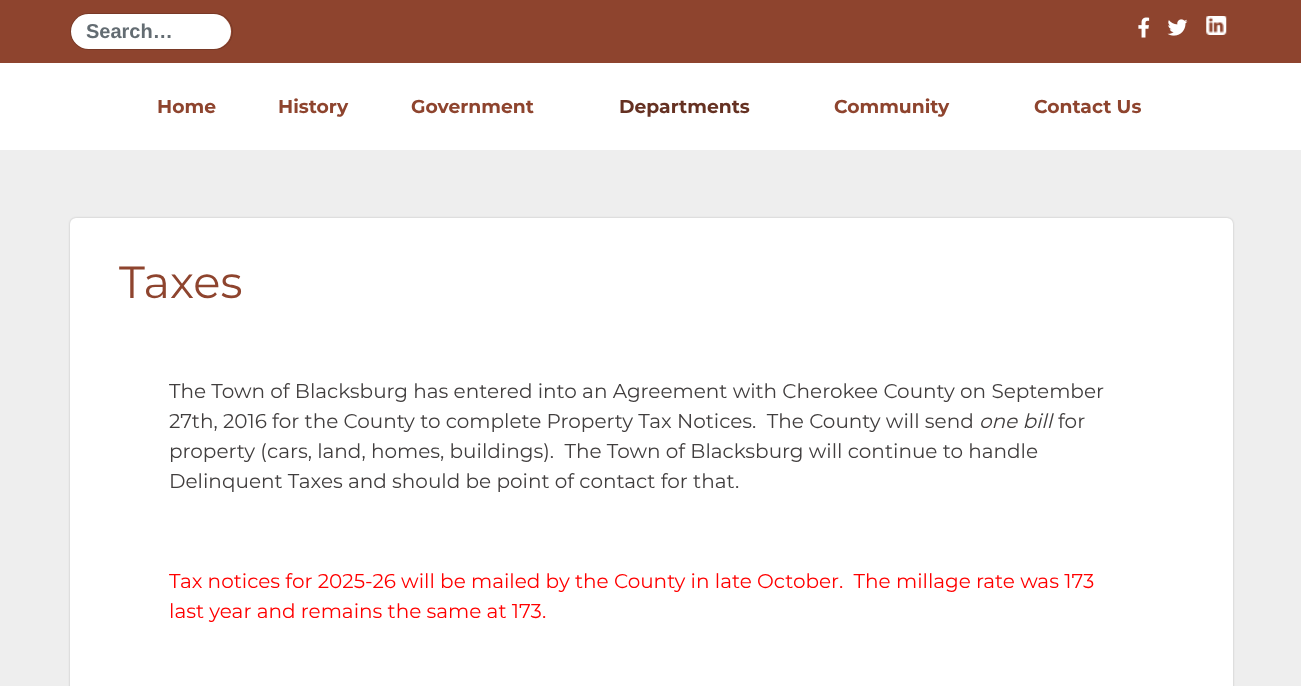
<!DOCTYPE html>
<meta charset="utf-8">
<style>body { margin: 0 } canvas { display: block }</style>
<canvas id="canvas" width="1301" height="686"></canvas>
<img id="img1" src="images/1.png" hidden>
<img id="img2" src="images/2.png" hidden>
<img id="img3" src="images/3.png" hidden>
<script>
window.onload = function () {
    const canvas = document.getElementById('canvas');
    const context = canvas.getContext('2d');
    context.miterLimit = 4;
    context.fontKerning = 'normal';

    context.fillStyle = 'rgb(255, 255, 255)';
    context.fillRect(0, 0, 1301, 686);
    context.fillStyle = 'rgb(142, 68, 46)';
    context.fillRect(0, 0, 1301, 63);
    context.fillStyle = 'rgb(255, 255, 255)';
    context.beginPath();
    context.roundRect(71, 14, 160, 35, 17.5);
    context.fill();
    context.beginPath();
    context.roundRect(70.5, 13.5, 162, 36, 18);
    context.strokeStyle = 'rgba(0, 0, 0, 0.15)';
    context.stroke();
    context.drawImage(document.getElementById('img1'), 1138, 17, 12, 21);
    context.drawImage(document.getElementById('img2'), 1167, 19, 21, 17);
    context.drawImage(document.getElementById('img3'), 1206, 16, 21, 19);
    context.fillStyle = 'rgb(238, 238, 238)';
    context.fillRect(0, 150, 1301, 536);
    context.fillStyle = 'rgba(0, 0, 0, 0.2)';
    context.filter = 'blur(1px)';
    context.beginPath();
    context.roundRect(70, 218, 1163, 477, 6);
    context.fill();
    context.filter = 'none';
    context.fillStyle = 'rgb(255, 255, 255)';
    context.beginPath();
    context.roundRect(70, 218, 1163, 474, 6);
    context.fill();
    context.font = 'bold 20px Liberation Sans';
    context.fillStyle = 'rgb(99, 108, 114)';
    context.fillText('Search…', 86, 38);
    context.font = 'bold 18.75px Montserrat';
    context.fillStyle = 'rgb(142, 68, 46)';
    context.fillText('Home', 157, 113);
    context.fillText('History', 278, 113);
    context.fillText('Government', 411, 113);
    context.fillStyle = 'rgb(101, 49, 34)';
    context.fillText('Departments', 619, 113);
    context.fillStyle = 'rgb(142, 68, 46)';
    context.fillText('Community', 834, 113);
    context.fillText('Contact Us', 1034, 113);
    context.font = '45px Montserrat';
    context.fillText('Taxes', 119, 298);
    context.font = '20px Montserrat';
    context.fillStyle = 'rgb(65, 62, 62)';
    context.fillText('The Town of Blacksburg has entered into an Agreement with Cherokee County on September', 169, 398);
    context.fillText('27th, 2016 for the County to complete Property Tax Notices.  The County will send', 169, 428);
    context.font = 'italic 20px Montserrat';
    context.fillText('one bill', 979, 428);
    context.font = '20px Montserrat';
    context.fillText('for', 1058, 428);
    context.fillText('property (cars, land, homes, buildings).  The Town of Blacksburg will continue to handle', 169, 458);
    context.fillText('Delinquent Taxes and should be point of contact for that.', 169, 488);
    context.fillStyle = 'rgb(255, 0, 0)';
    context.fillText('Tax notices for 2025-26 will be mailed by the County in late October.  The millage rate was 173', 169, 588);
    context.fillText('last year and remains the same at 173.', 169, 618);
};
</script>
